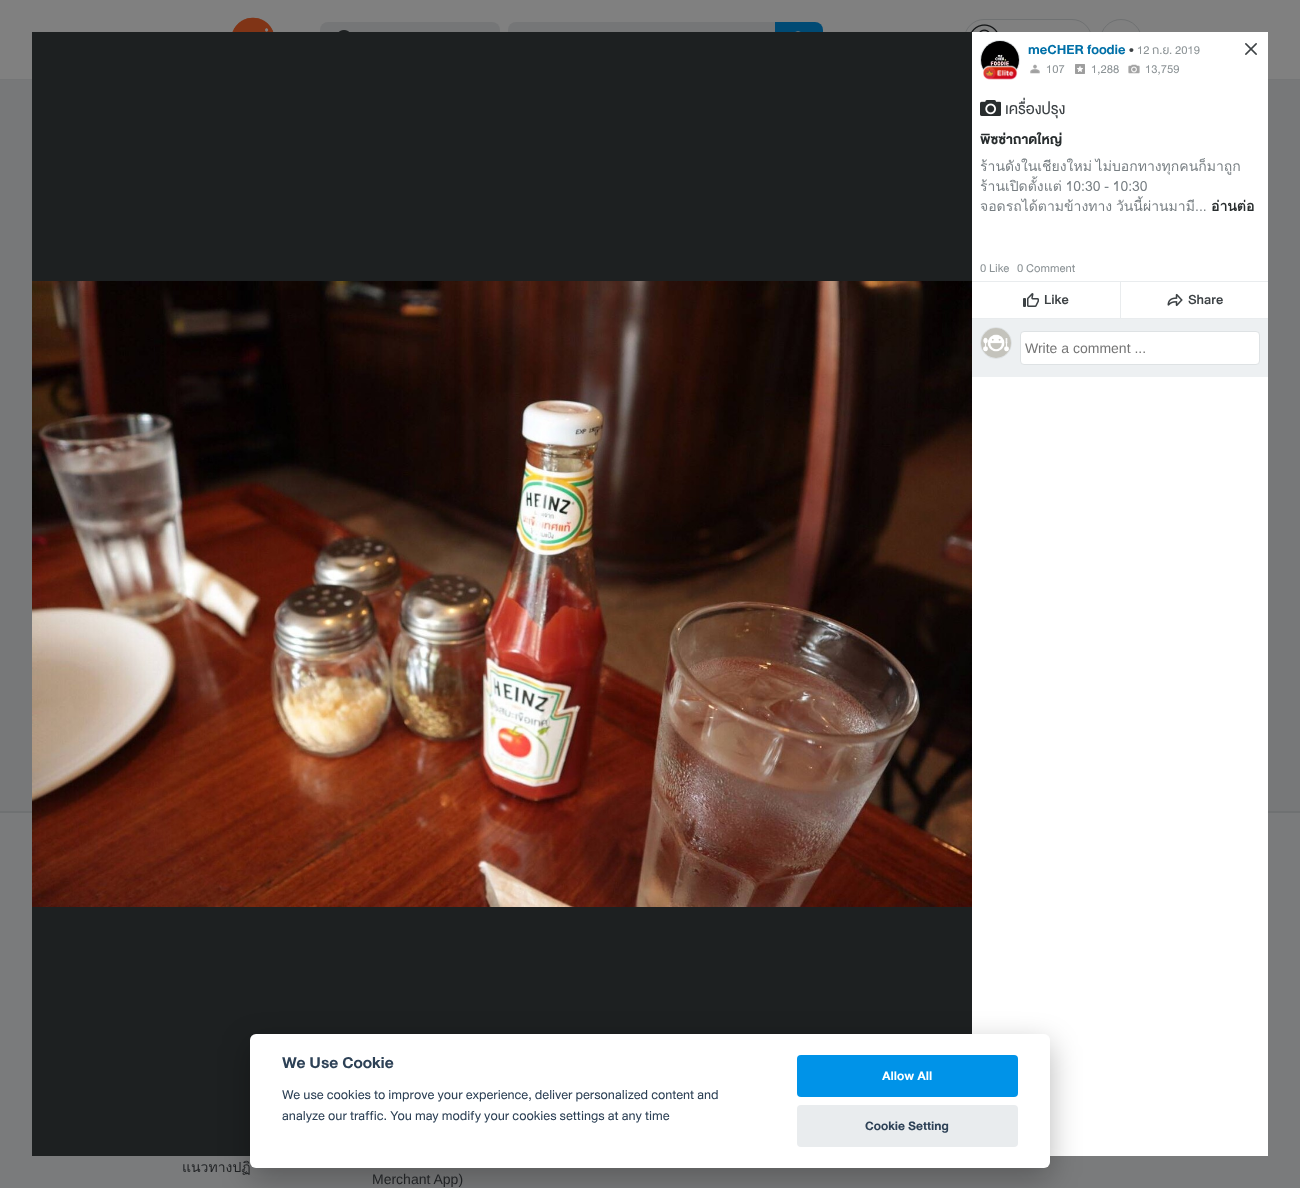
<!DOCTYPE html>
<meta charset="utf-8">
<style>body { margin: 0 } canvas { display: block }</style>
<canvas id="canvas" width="1300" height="1188"></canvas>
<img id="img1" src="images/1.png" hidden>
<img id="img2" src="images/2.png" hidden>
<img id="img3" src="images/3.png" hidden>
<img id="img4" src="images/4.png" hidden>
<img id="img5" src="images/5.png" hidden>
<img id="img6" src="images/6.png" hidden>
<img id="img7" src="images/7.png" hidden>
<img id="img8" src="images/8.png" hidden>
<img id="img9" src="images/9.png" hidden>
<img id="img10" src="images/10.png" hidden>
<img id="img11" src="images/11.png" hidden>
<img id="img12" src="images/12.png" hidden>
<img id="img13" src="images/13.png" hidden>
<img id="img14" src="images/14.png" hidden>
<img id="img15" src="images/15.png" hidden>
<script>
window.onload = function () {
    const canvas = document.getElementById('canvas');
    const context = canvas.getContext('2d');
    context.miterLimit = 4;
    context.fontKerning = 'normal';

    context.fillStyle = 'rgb(128, 128, 128)';
    context.fillRect(0, 0, 1300, 1188);
    context.fillStyle = 'rgb(117, 118, 119)';
    context.fillRect(0, 79, 1300, 1);
    context.beginPath();
    context.roundRect(964.5, 19.5, 127, 41, 19.5);
    context.strokeStyle = 'rgb(111, 113, 114)';
    context.stroke();
    context.beginPath();
    context.arc(1121, 40, 20.5, 0, 2 * Math.PI);
    context.stroke();
    context.fillStyle = 'rgb(119, 120, 121)';
    context.fillRect(0, 80, 1300, 731);
    context.fillStyle = 'rgb(122, 123, 124)';
    context.fillRect(0, 813, 1300, 375);
    context.fillStyle = 'rgb(111, 113, 114)';
    context.fillRect(0, 811, 1300, 2);
    context.fillStyle = 'rgb(255, 255, 255)';
    context.fillRect(972, 32, 296, 1124);
    context.fillStyle = 'rgb(117, 118, 119)';
    context.beginPath();
    context.roundRect(320, 22, 180, 36, 8);
    context.fill();
    context.beginPath();
    context.roundRect(508, 22, 267, 36, [8, 0, 0, 8]);
    context.fill();
    context.fillStyle = 'rgb(0, 74, 116)';
    context.beginPath();
    context.roundRect(775, 22, 48, 36, [0, 8, 8, 0]);
    context.fill();
    context.fillStyle = 'rgb(29, 32, 33)';
    context.fillRect(32, 32, 940, 1124);
    context.drawImage(document.getElementById('img1'), 32, 281, 940, 626);
    context.drawImage(document.getElementById('img2'), 1245, 43, 12, 12);
    context.fillStyle = 'rgb(237, 240, 242)';
    context.beginPath();
    context.arc(1000, 60, 19.5, 0, 2 * Math.PI);
    context.fill();
    context.strokeStyle = 'rgb(222, 226, 228)';
    context.stroke();
    context.drawImage(document.getElementById('img3'), 981, 41, 38, 29);
    context.drawImage(document.getElementById('img4'), 983, 65, 35, 15);
    context.drawImage(document.getElementById('img5'), 1030, 64, 10, 10);
    context.drawImage(document.getElementById('img6'), 1075, 64, 10, 10);
    context.drawImage(document.getElementById('img7'), 1128, 64, 12, 10);
    context.drawImage(document.getElementById('img8'), 980, 100, 21, 16);
    context.fillStyle = 'rgb(233, 236, 238)';
    context.fillRect(972, 281, 296, 38);
    context.fillStyle = 'rgb(255, 255, 255)';
    context.fillRect(972, 282, 148, 36);
    context.drawImage(document.getElementById('img9'), 1023, 293, 16, 14);
    context.fillRect(1121, 282, 147, 36);
    context.drawImage(document.getElementById('img10'), 1167, 293, 16, 14);
    context.fillStyle = 'rgb(237, 240, 242)';
    context.fillRect(972, 319, 296, 58);
    context.beginPath();
    context.arc(996, 343, 15.5, 0, 2 * Math.PI);
    context.stroke();
    context.drawImage(document.getElementById('img11'), 981, 328, 30, 30);
    context.fillStyle = 'rgb(255, 255, 255)';
    context.beginPath();
    context.roundRect(1020.5, 331.5, 239, 33, 3.5);
    context.fill();
    context.stroke();
    context.drawImage(document.getElementById('img12'), 232, 17, 42, 15);
    context.drawImage(document.getElementById('img13'), 338, 30, 12, 2);
    context.drawImage(document.getElementById('img14'), 795, 31, 6, 1);
    context.drawImage(document.getElementById('img15'), 971, 24, 27, 8);
    context.fillStyle = 'rgba(2, 2, 3, 0.28)';
    context.filter = 'blur(15px)';
    context.beginPath();
    context.roundRect(250, 1044, 800, 134, 6);
    context.fill();
    context.filter = 'none';
    context.fillStyle = 'rgb(255, 255, 255)';
    context.beginPath();
    context.roundRect(250, 1034, 800, 134, 6);
    context.fill();
    context.fillStyle = 'rgb(0, 147, 232)';
    context.beginPath();
    context.roundRect(797, 1055, 221, 42, 4);
    context.fill();
    context.fillStyle = 'rgb(233, 236, 238)';
    context.beginPath();
    context.roundRect(797, 1105, 221, 42, 4);
    context.fill();
    context.font = 'bold 14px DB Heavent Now';
    context.fillStyle = 'rgb(0, 112, 168)';
    context.fillText('meCHER foodie', 1028, 54);
    context.font = '14px DB Heavent Now';
    context.fillStyle = 'rgb(61, 66, 69)';
    context.fillText('•', 1129, 54);
    context.font = '12px DB Heavent Now';
    context.fillStyle = 'rgb(140, 147, 150)';
    context.fillText('12 ก.ย. 2019', 1137, 54);
    context.fillText('107', 1046, 73);
    context.fillText('1,288', 1091, 73);
    context.fillText('13,759', 1145, 73);
    context.font = '16px DB Heavent Now';
    context.fillStyle = 'rgb(61, 66, 69)';
    context.fillText('เครื่องปรุง', 1005, 114);
    context.font = 'bold 14px DB Heavent Now';
    context.fillStyle = 'rgb(40, 45, 46)';
    context.fillText('พิซซ่าถาดใหญ่', 980, 144);
    context.wordSpacing = '-1px';
    context.font = '14px Loma';
    context.fillStyle = 'rgb(120, 127, 131)';
    context.fillText('ร้านดังในเชียงใหม่ ไม่บอกทางทุกคนก็มาถูก', 980, 171);
    context.fillText('ร้านเปิดตั้งแต่ 10:30 - 10:30', 980, 191);
    context.fillText('จอดรถได้ตามข้างทาง วันนี้ผ่านมามี', 980, 211);
    context.wordSpacing = '0px';
    context.font = '14px Liberation Sans';
    context.fillText('...', 1195, 211);
    context.font = 'bold 14px Loma';
    context.fillStyle = 'rgb(40, 45, 46)';
    context.fillText('อ่านต่อ', 1211, 211);
    context.font = '12px DB Heavent Now';
    context.fillStyle = 'rgb(140, 147, 150)';
    context.fillText('0 Like', 980, 272);
    context.fillText('0 Comment', 1017, 272);
    context.font = '500 14px DB Heavent Now';
    context.fillStyle = 'rgb(61, 66, 69)';
    context.fillText('Like', 1044, 304);
    context.fillText('Share', 1188, 304);
    context.font = '14px Liberation Sans';
    context.fillStyle = 'rgb(117, 117, 117)';
    context.fillText('Write a comment ...', 1025, 353);
    context.font = '14px Loma';
    context.fillStyle = 'rgb(31, 33, 35)';
    context.fillText('แนวทางปฏิ', 182, 1172);
    context.font = '14px Liberation Sans';
    context.fillText('Merchant App)', 372, 1184);
    context.font = 'bold 16.75px DB Heavent Now';
    context.fillStyle = 'rgb(45, 65, 86)';
    context.fillText('We Use Cookie', 282, 1068);
    context.font = '13.6px DB Heavent Now';
    context.fillText('We use cookies to improve your experience, deliver personalized content and', 282, 1099);
    context.fillText('analyze our traffic. You may modify your cookies settings at any time', 282, 1120);
    context.font = 'bold 13px DB Heavent Now';
    context.fillStyle = 'rgb(255, 255, 255)';
    context.fillText('Allow All', 882, 1080);
    context.fillStyle = 'rgb(45, 65, 86)';
    context.fillText('Cookie Setting', 865, 1130);
};
</script>
